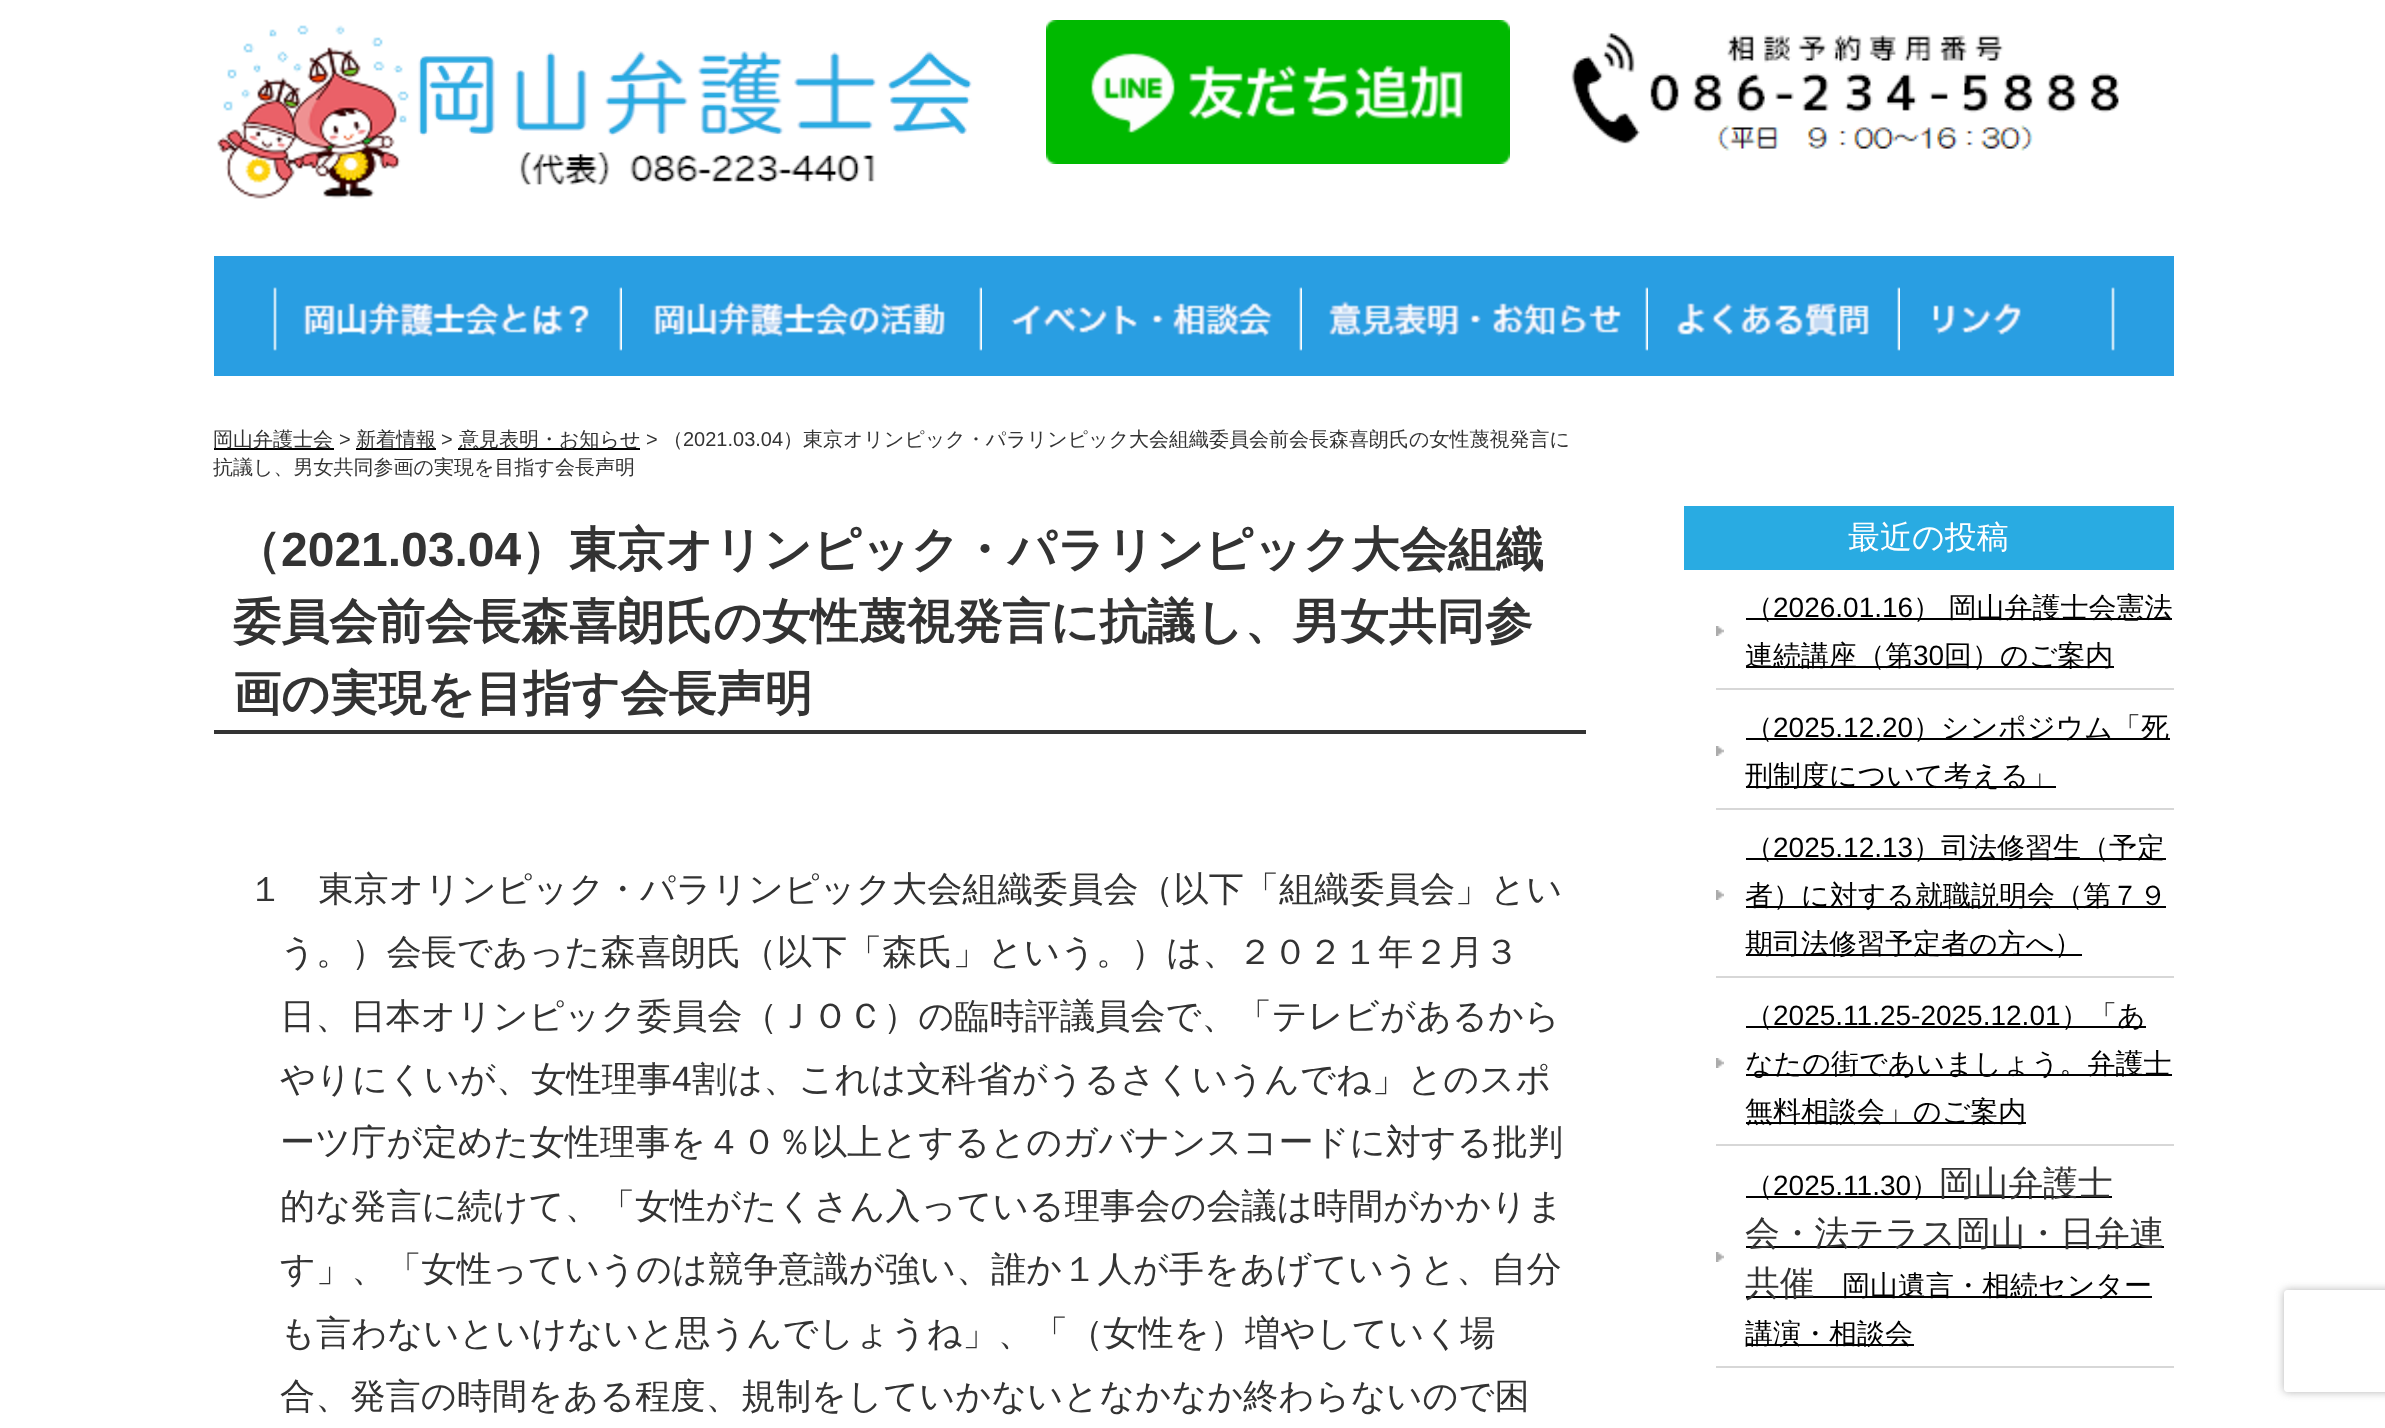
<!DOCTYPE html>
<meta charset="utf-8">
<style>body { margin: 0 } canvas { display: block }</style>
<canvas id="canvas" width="2385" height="1428"></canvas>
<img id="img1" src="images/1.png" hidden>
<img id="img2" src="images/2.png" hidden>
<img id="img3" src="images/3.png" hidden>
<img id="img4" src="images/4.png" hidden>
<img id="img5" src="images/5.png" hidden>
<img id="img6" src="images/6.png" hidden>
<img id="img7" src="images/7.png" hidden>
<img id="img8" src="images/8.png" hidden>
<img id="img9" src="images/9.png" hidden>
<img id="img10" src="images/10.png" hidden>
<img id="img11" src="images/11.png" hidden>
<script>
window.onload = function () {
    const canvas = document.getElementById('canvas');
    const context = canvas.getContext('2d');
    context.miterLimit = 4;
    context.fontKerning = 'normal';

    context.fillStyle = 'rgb(255, 255, 255)';
    context.fillRect(0, 0, 2385, 1428);
    context.drawImage(document.getElementById('img1'), 217, 25, 192, 174);
    context.drawImage(document.getElementById('img2'), 418, 51, 554, 134);
    context.drawImage(document.getElementById('img3'), 1046, 20, 464, 144);
    context.drawImage(document.getElementById('img4'), 1571, 33, 548, 118);
    context.drawImage(document.getElementById('img5'), 214, 256, 408, 120);
    context.drawImage(document.getElementById('img6'), 622, 256, 360, 120);
    context.drawImage(document.getElementById('img7'), 982, 256, 320, 120);
    context.drawImage(document.getElementById('img8'), 1302, 256, 346, 120);
    context.drawImage(document.getElementById('img9'), 1648, 256, 252, 120);
    context.drawImage(document.getElementById('img10'), 1900, 256, 274, 120);
    context.fillStyle = 'rgb(0, 0, 0)';
    context.fillRect(214, 448, 120, 2);
    context.fillRect(356, 448, 80, 2);
    context.fillRect(458, 448, 182, 2);
    context.fillStyle = 'rgb(51, 51, 51)';
    context.fillRect(214, 730, 1372, 4);
    context.fillStyle = 'rgb(41, 171, 226)';
    context.fillRect(1684, 506, 490, 64);
    context.fillStyle = 'rgb(215, 215, 215)';
    context.fillRect(1716, 688, 458, 2);
    context.drawImage(document.getElementById('img11'), 1716, 626, 8, 10);
    context.fillStyle = 'rgb(0, 0, 0)';
    context.fillRect(1746, 618, 426, 2);
    context.fillRect(1746, 666, 368, 2);
    context.fillStyle = 'rgb(215, 215, 215)';
    context.fillRect(1716, 808, 458, 2);
    context.drawImage(document.getElementById('img11'), 1716, 746, 8, 10);
    context.fillStyle = 'rgb(0, 0, 0)';
    context.fillRect(1746, 738, 424, 2);
    context.fillRect(1746, 786, 310, 2);
    context.fillStyle = 'rgb(215, 215, 215)';
    context.fillRect(1716, 976, 458, 2);
    context.drawImage(document.getElementById('img11'), 1716, 890, 8, 10);
    context.fillStyle = 'rgb(0, 0, 0)';
    context.fillRect(1746, 858, 420, 2);
    context.fillRect(1746, 906, 420, 2);
    context.fillRect(1746, 954, 336, 2);
    context.fillStyle = 'rgb(215, 215, 215)';
    context.fillRect(1716, 1144, 458, 2);
    context.drawImage(document.getElementById('img11'), 1716, 1058, 8, 10);
    context.fillStyle = 'rgb(0, 0, 0)';
    context.fillRect(1746, 1026, 400, 2);
    context.fillRect(1746, 1074, 426, 2);
    context.fillRect(1746, 1122, 280, 2);
    context.fillStyle = 'rgb(215, 215, 215)';
    context.fillRect(1716, 1366, 458, 2);
    context.drawImage(document.getElementById('img11'), 1716, 1252, 8, 10);
    context.fillStyle = 'rgb(0, 0, 0)';
    context.fillRect(1746, 1196, 366, 2);
    context.fillRect(1746, 1246, 418, 2);
    context.fillRect(1746, 1296, 406, 2);
    context.fillRect(1746, 1344, 168, 2);
    context.save();
    context.beginPath();
    context.moveTo(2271, 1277);
    context.lineTo(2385, 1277);
    context.lineTo(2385, 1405);
    context.lineTo(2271, 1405);
    context.closePath();
    context.moveTo(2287, 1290);
    context.lineTo(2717, 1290);
    context.bezierCurveTo(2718.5, 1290, 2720, 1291.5, 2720, 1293);
    context.lineTo(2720, 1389);
    context.bezierCurveTo(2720, 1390.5, 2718.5, 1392, 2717, 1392);
    context.lineTo(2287, 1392);
    context.bezierCurveTo(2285.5, 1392, 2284, 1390.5, 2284, 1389);
    context.lineTo(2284, 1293);
    context.bezierCurveTo(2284, 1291.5, 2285.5, 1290, 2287, 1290);
    context.closePath();
    context.clip('evenodd');
    context.fillStyle = 'rgb(179, 179, 179)';
    context.filter = 'blur(4px)';
    context.beginPath();
    context.roundRect(2284, 1290, 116, 102, 3);
    context.fill();
    context.filter = 'none';
    context.restore();
    context.font = '500 20px WenQuanYi Zen Hei';
    context.fillStyle = 'rgb(51, 51, 51)';
    context.fillText('岡山弁護士会', 213, 446);
    context.font = '20px Liberation Sans';
    context.fillText('>', 339, 446);
    context.font = '500 20px WenQuanYi Zen Hei';
    context.fillText('新着情報', 356, 446);
    context.font = '20px Liberation Sans';
    context.fillText('>', 441, 446);
    context.font = '500 20px WenQuanYi Zen Hei';
    context.fillText('意見表明・お知らせ', 459, 446);
    context.font = '20px Liberation Sans';
    context.fillText('>', 646, 446);
    context.font = '500 20px WenQuanYi Zen Hei';
    context.fillText('（', 663, 446);
    context.font = '20px Liberation Sans';
    context.fillText('2021.03.04', 683, 446);
    context.font = '500 20px WenQuanYi Zen Hei';
    context.fillText('）東京オリンピック・パラリンピック大会組織委員会前会長森喜朗氏の女性蔑視発言に', 783, 446);
    context.fillText('抗議し、男女共同参画の実現を目指す会長声明', 213, 474);
    context.font = 'bold 48px WenQuanYi Zen Hei';
    context.fillText('（', 233, 566);
    context.font = 'bold 48px Liberation Sans';
    context.fillText('2021.03.04', 281, 566);
    context.font = 'bold 48px WenQuanYi Zen Hei';
    context.fillText('）東京オリンピック・パラリンピック大会組織', 521, 566);
    context.fillText('委員会前会長森喜朗氏の女性蔑視発言に抗議し、男女共同参', 233, 638);
    context.fillText('画の実現を目指す会長声明', 233, 710);
    context.font = '500 35.2px WenQuanYi Zen Hei';
    context.fillText('１　東京オリンピック・パラリンピック大会組織委員会（以下「組織委員会」とい', 248, 901);
    context.fillText('う。）会長であった森喜朗氏（以下「森氏」という。）は、２０２１年２月３', 280, 964);
    context.fillText('日、日本オリンピック委員会（ＪＯＣ）の臨時評議員会で、「テレビがあるから', 280, 1028);
    context.fillText('やりにくいが、女性理事', 280, 1091);
    context.font = '35.2px Liberation Sans';
    context.fillText('4', 672, 1091);
    context.font = '500 35.2px WenQuanYi Zen Hei';
    context.fillText('割は、これは文科省がうるさくいうんでね」とのスポ', 692, 1091);
    context.fillText('ーツ庁が定めた女性理事を４０％以上とするとのガバナンスコードに対する批判', 280, 1154);
    context.fillText('的な発言に続けて、「女性がたくさん入っている理事会の会議は時間がかかりま', 280, 1218);
    context.fillText('す」、「女性っていうのは競争意識が強い、誰か１人が手をあげていうと、自分', 280, 1281);
    context.fillText('も言わないといけないと思うんでしょうね」、「（女性を）増やしていく場', 280, 1345);
    context.fillText('合、発言の時間をある程度、規制をしていかないとなかなか終わらないので困', 280, 1408);
    context.font = '500 32px WenQuanYi Zen Hei';
    context.fillStyle = 'rgb(255, 255, 255)';
    context.fillText('最近の投稿', 1848, 548);
    context.font = '500 28px WenQuanYi Zen Hei';
    context.fillStyle = 'rgb(0, 0, 0)';
    context.fillText('（', 1745, 617);
    context.font = '28px Liberation Sans';
    context.fillText('2026.01.16', 1773, 617);
    context.wordSpacing = '-1px';
    context.font = '500 28px WenQuanYi Zen Hei';
    context.fillText('） 岡山弁護士会憲法', 1913, 617);
    context.wordSpacing = '0px';
    context.fillText('連続講座（第', 1745, 665);
    context.font = '28px Liberation Sans';
    context.fillText('30', 1913, 665);
    context.font = '500 28px WenQuanYi Zen Hei';
    context.fillText('回）のご案内', 1944, 665);
    context.fillText('（', 1745, 737);
    context.font = '28px Liberation Sans';
    context.fillText('2025.12.20', 1773, 737);
    context.font = '500 28px WenQuanYi Zen Hei';
    context.fillText('）シンポジウム「死', 1913, 737);
    context.fillText('刑制度について考える」', 1745, 785);
    context.fillText('（', 1745, 857);
    context.font = '28px Liberation Sans';
    context.fillText('2025.12.13', 1773, 857);
    context.font = '500 28px WenQuanYi Zen Hei';
    context.fillText('）司法修習生（予定', 1913, 857);
    context.fillText('者）に対する就職説明会（第７９', 1745, 905);
    context.fillText('期司法修習予定者の方へ）', 1745, 953);
    context.fillText('（', 1745, 1025);
    context.font = '28px Liberation Sans';
    context.fillText('2025.11.25-2025.12.01', 1773, 1025);
    context.font = '500 28px WenQuanYi Zen Hei';
    context.fillText('）「あ', 2061, 1025);
    context.fillText('なたの街であいましょう。弁護士', 1745, 1073);
    context.fillText('無料相談会」のご案内', 1745, 1121);
    context.fillText('（', 1745, 1195);
    context.font = '28px Liberation Sans';
    context.fillText('2025.11.30', 1773, 1195);
    context.font = '500 28px WenQuanYi Zen Hei';
    context.fillText('）', 1911, 1195);
    context.font = '500 34.75px WenQuanYi Zen Hei';
    context.fillStyle = 'rgb(51, 51, 51)';
    context.fillText('岡山弁護士', 1939, 1195);
    context.fillText('会・法テラス岡山・日弁連', 1745, 1245);
    context.fillText('共催', 1745, 1295);
    context.font = '500 28px WenQuanYi Zen Hei';
    context.fillStyle = 'rgb(0, 0, 0)';
    context.fillText('岡山遺言・相続センター', 1842, 1295);
    context.fillText('講演・相談会', 1745, 1343);
};
</script>
